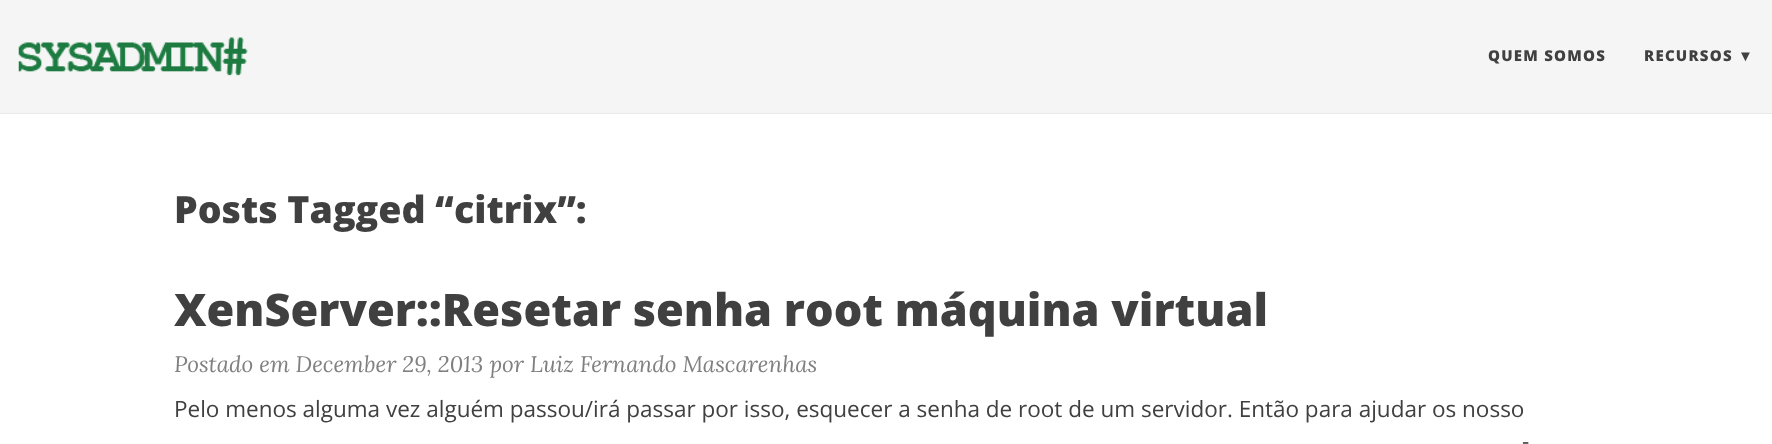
<!DOCTYPE html>
<meta charset="utf-8">
<style>body { margin: 0 } canvas { display: block }</style>
<canvas id="canvas" width="1772" height="444"></canvas>
<img id="img1" src="images/1.png" hidden>
<script>
window.onload = function () {
    const canvas = document.getElementById('canvas');
    const context = canvas.getContext('2d');
    context.miterLimit = 4;
    context.fontKerning = 'normal';

    context.fillStyle = 'rgb(255, 255, 255)';
    context.fillRect(0, 0, 1772, 444);
    context.fillStyle = 'rgb(245, 245, 245)';
    context.fillRect(0, 0, 1772, 113);
    context.fillStyle = 'rgb(234, 234, 234)';
    context.fillRect(0, 113, 1772, 1);
    context.drawImage(document.getElementById('img1'), 18, 37, 230, 39);
    context.letterSpacing = '1.25px';
    context.font = '800 15px Open Sans';
    context.fillStyle = 'rgb(64, 64, 64)';
    context.fillText('QUEM SOMOS', 1488, 61);
    context.fillText('RECURSOS', 1644, 61);
    context.font = 'bold 15px Liberation Sans';
    context.fillText('▼', 1738, 61);
    context.letterSpacing = '0px';
    context.font = '800 37.5px Open Sans';
    context.fillText('Posts Tagged “citrix”:', 174, 223);
    context.font = '800 45px Open Sans';
    context.fillText('XenServer::Resetar senha root máquina virtual', 174, 326);
    context.font = 'italic 22.5px Lora';
    context.fillStyle = 'rgb(128, 128, 128)';
    context.fillText('Postado em December 29, 2013 por Luiz Fernando Mascarenhas', 174, 372);
    context.font = '22.5px Open Sans';
    context.fillStyle = 'rgb(64, 64, 64)';
    context.fillText('Pelo menos alguma vez alguém passou/irá passar por isso, esquecer a senha de root de um servidor. Então para ajudar os nosso', 174, 417);
    context.fillText('-', 1522, 449);
};
</script>
